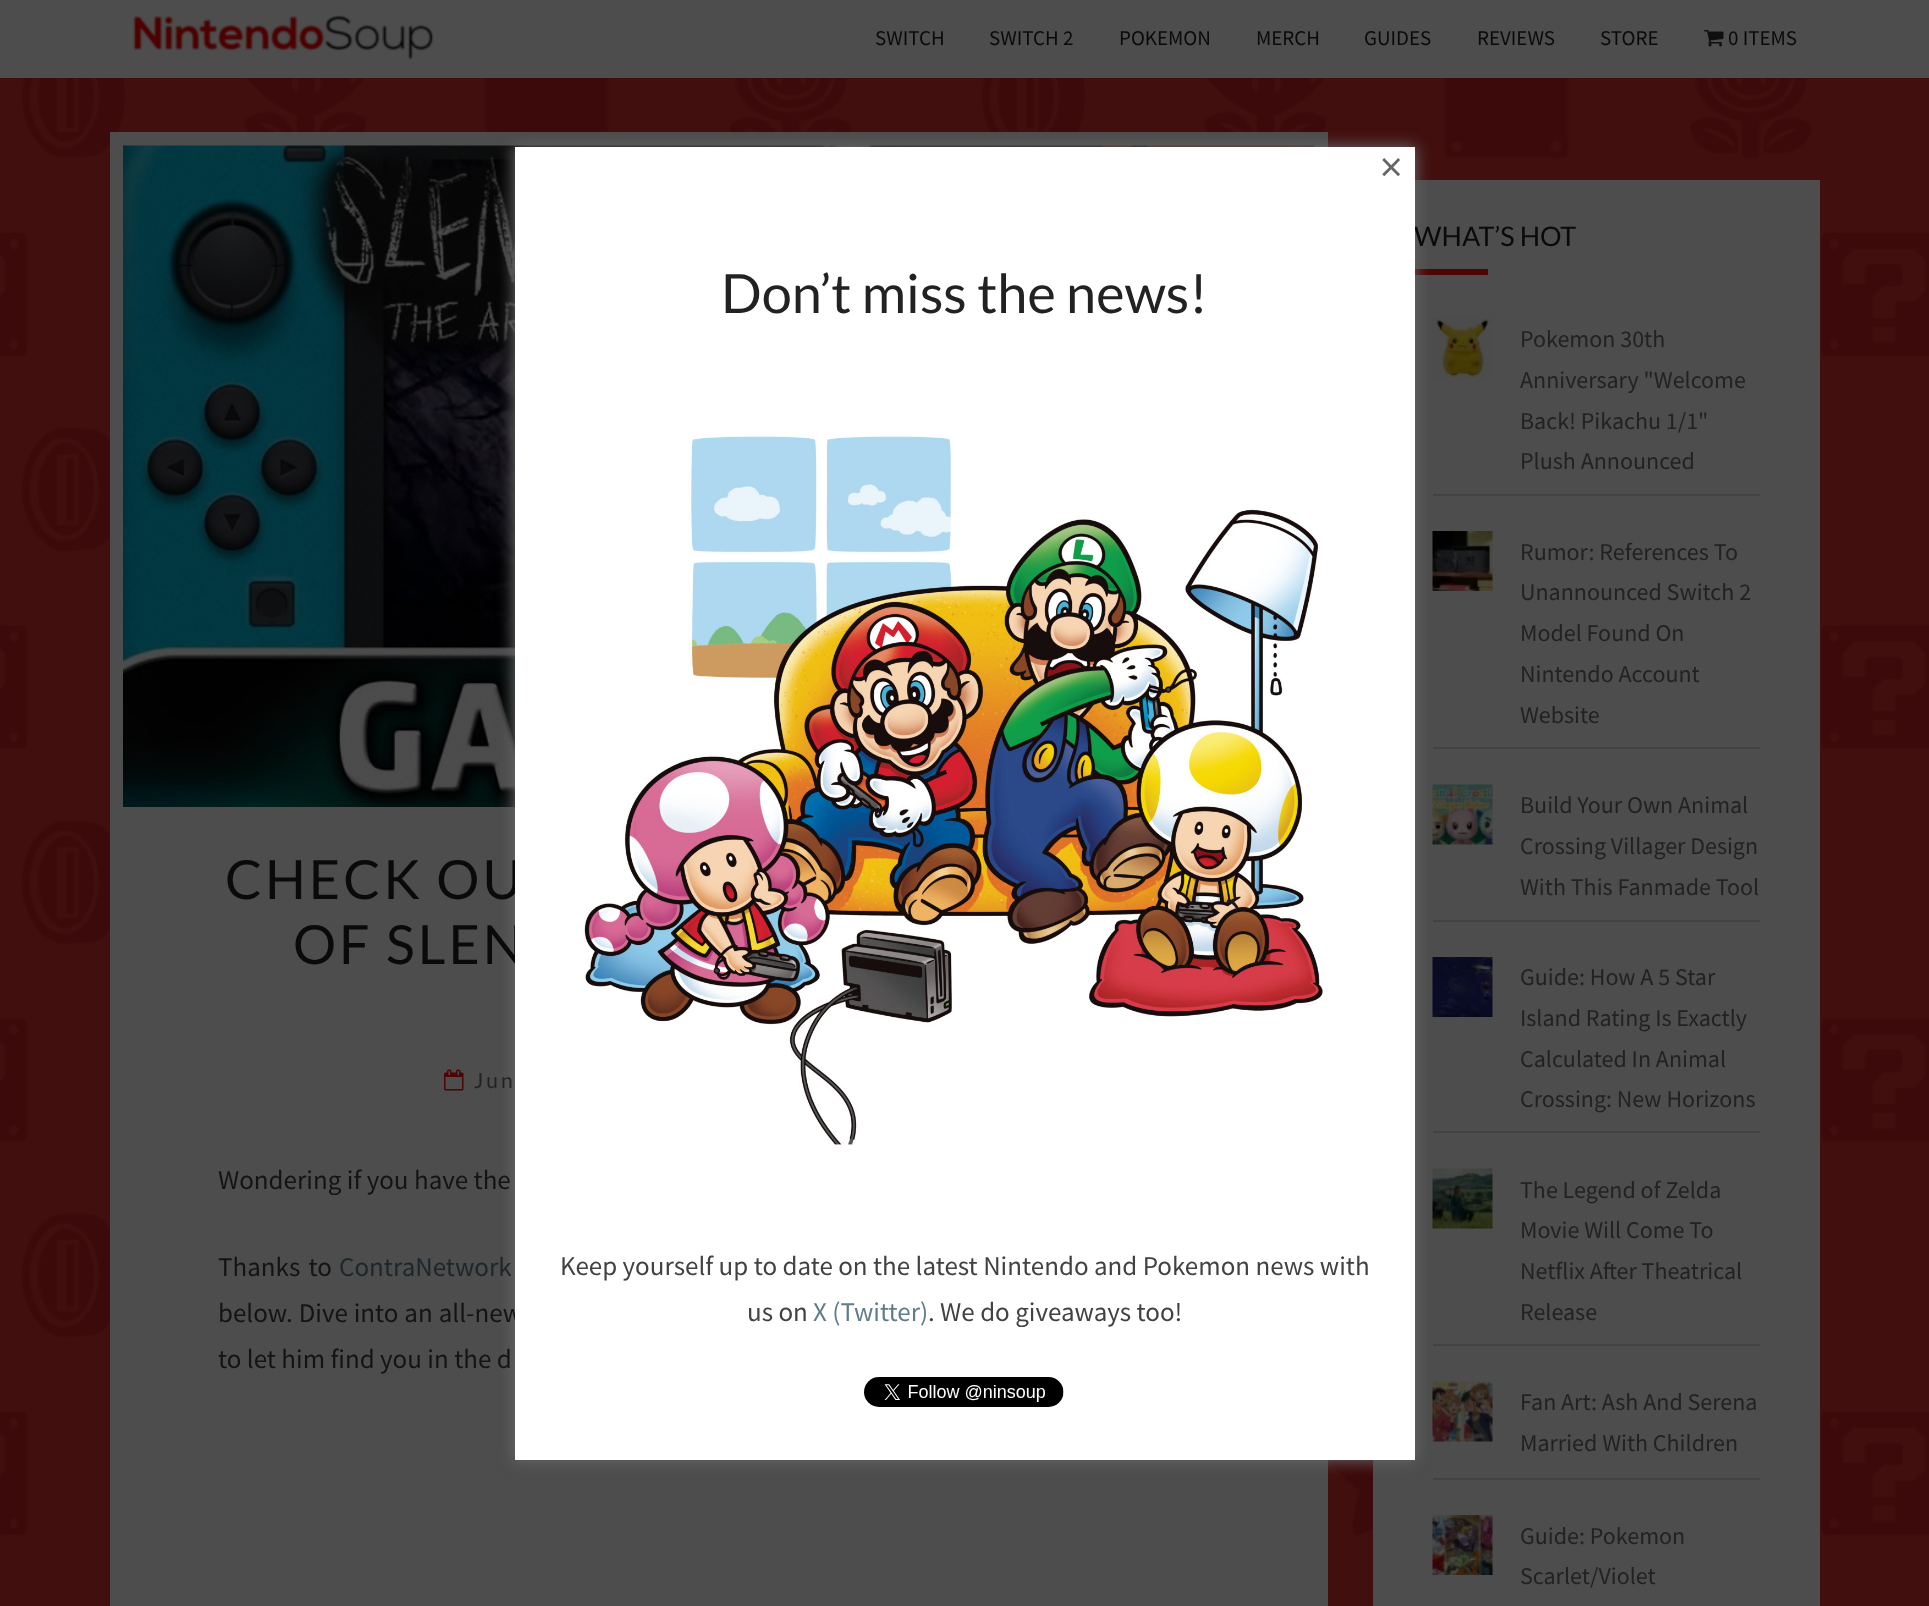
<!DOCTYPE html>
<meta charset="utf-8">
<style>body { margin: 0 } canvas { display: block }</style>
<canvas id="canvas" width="1929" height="1606"></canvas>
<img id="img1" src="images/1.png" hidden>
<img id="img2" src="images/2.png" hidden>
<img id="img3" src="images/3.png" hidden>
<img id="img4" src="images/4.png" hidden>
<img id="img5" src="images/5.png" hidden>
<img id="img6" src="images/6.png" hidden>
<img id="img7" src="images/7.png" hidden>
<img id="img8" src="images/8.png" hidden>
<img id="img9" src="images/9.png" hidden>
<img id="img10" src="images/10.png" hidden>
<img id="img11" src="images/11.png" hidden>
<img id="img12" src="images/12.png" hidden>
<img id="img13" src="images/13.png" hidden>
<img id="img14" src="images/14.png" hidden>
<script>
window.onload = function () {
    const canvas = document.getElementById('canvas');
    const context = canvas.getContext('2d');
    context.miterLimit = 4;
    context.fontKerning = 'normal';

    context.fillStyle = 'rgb(66, 15, 15)';
    context.fillRect(0, 0, 1929, 1606);
    context.drawImage(document.getElementById('img1'), 0, 78, 1929, 1458);
    context.fillStyle = 'rgb(77, 77, 77)';
    context.fillRect(0, 0, 1929, 78);
    context.drawImage(document.getElementById('img2'), 133, 15, 301, 45);
    context.drawImage(document.getElementById('img3'), 1704, 30, 20, 17);
    context.fillRect(110, 132, 1218, 1474);
    context.drawImage(document.getElementById('img4'), 123, 145, 1191, 662);
    context.drawImage(document.getElementById('img5'), 444, 1069, 20, 22);
    context.fillRect(1373, 180, 447, 1426);
    context.fillStyle = 'rgb(77, 4, 4)';
    context.fillRect(1413, 269, 75, 6);
    context.fillStyle = 'rgb(66, 66, 66)';
    context.fillRect(1433, 494, 327, 2);
    context.drawImage(document.getElementById('img6'), 1432, 318, 61, 60);
    context.fillRect(1433, 747, 327, 2);
    context.drawImage(document.getElementById('img7'), 1432, 531, 61, 60);
    context.fillRect(1433, 920, 327, 2);
    context.drawImage(document.getElementById('img8'), 1432, 784, 61, 61);
    context.fillRect(1433, 1131, 327, 2);
    context.drawImage(document.getElementById('img9'), 1432, 957, 61, 60);
    context.fillRect(1433, 1344, 327, 2);
    context.drawImage(document.getElementById('img10'), 1432, 1168, 61, 61);
    context.fillRect(1433, 1478, 327, 2);
    context.drawImage(document.getElementById('img11'), 1432, 1381, 61, 61);
    context.drawImage(document.getElementById('img12'), 1432, 1515, 61, 60);
    context.fillStyle = 'rgb(102, 102, 102)';
    context.filter = 'blur(7.5px)';
    context.beginPath();
    context.rect(513, 146, 903, 1315);
    context.fill();
    context.filter = 'none';
    context.font = '21px Source Sans Pro';
    context.fillStyle = 'rgb(10, 10, 10)';
    context.fillText('SWITCH', 875, 45);
    context.fillText('SWITCH 2', 989, 45);
    context.fillText('POKEMON', 1119, 45);
    context.fillText('MERCH', 1256, 45);
    context.fillText('GUIDES', 1364, 45);
    context.fillText('REVIEWS', 1477, 45);
    context.fillText('STORE', 1600, 45);
    context.fillText('0 ITEMS', 1728, 45);
    context.letterSpacing = '3px';
    context.font = '54px Lato';
    context.fillText('CHECK OU', 225, 899);
    context.fillText('OF SLEN', 293, 964);
    context.font = '21px Lato';
    context.fillStyle = 'rgb(34, 34, 34)';
    context.fillText('Jun', 474, 1088);
    context.letterSpacing = '0px';
    context.font = '27px Source Sans Pro';
    context.fillStyle = 'rgb(20, 20, 20)';
    context.fillText('Wondering if you have the', 218, 1189);
    context.wordSpacing = '3px';
    context.fillText('Thanks to', 218, 1276);
    context.wordSpacing = '0px';
    context.fillStyle = 'rgb(29, 38, 42)';
    context.fillText('ContraNetwork', 339, 1276);
    context.wordSpacing = '0.5px';
    context.fillStyle = 'rgb(20, 20, 20)';
    context.fillText('below. Dive into an all-new', 218, 1322);
    context.wordSpacing = '0px';
    context.fillText('to let him find you in the d', 218, 1368);
    context.font = '27px Lato';
    context.fillStyle = 'rgb(10, 10, 10)';
    context.fillText('WHAT’S HOT', 1414, 246);
    context.font = '24px Source Sans Pro';
    context.fillStyle = 'rgb(34, 34, 34)';
    context.fillText('Pokemon 30th', 1520, 347);
    context.fillText('Anniversary "Welcome', 1520, 388);
    context.fillText('Back! Pikachu 1/1"', 1520, 429);
    context.fillText('Plush Announced', 1520, 469);
    context.fillText('Rumor: References To', 1520, 560);
    context.fillText('Unannounced Switch 2', 1520, 600);
    context.fillText('Model Found On', 1520, 641);
    context.fillText('Nintendo Account', 1520, 682);
    context.fillText('Website', 1520, 723);
    context.fillText('Build Your Own Animal', 1520, 813);
    context.fillText('Crossing Villager Design', 1520, 854);
    context.fillText('With This Fanmade Tool', 1520, 895);
    context.fillText('Guide: How A 5 Star', 1520, 985);
    context.fillText('Island Rating Is Exactly', 1520, 1026);
    context.fillText('Calculated In Animal', 1520, 1067);
    context.fillText('Crossing: New Horizons', 1520, 1107);
    context.fillText('The Legend of Zelda', 1520, 1198);
    context.fillText('Movie Will Come To', 1520, 1238);
    context.fillText('Netflix After Theatrical', 1520, 1279);
    context.fillText('Release', 1520, 1320);
    context.fillText('Fan Art: Ash And Serena', 1520, 1410);
    context.fillText('Married With Children', 1520, 1451);
    context.fillText('Guide: Pokemon', 1520, 1544);
    context.fillText('Scarlet/Violet', 1520, 1584);
    context.fillStyle = 'rgb(255, 255, 255)';
    context.fillRect(515, 147, 900, 1313);
    context.font = '45px Source Sans Pro';
    context.fillStyle = 'rgb(102, 102, 102)';
    context.fillText('×', 1380, 182);
    context.font = '54px Lato';
    context.fillStyle = 'rgb(34, 34, 34)';
    context.fillText('Don’t miss the news!', 721, 313);
    context.drawImage(document.getElementById('img13'), 583, 436, 740, 709);
    context.font = '27px Source Sans Pro';
    context.fillStyle = 'rgb(66, 66, 66)';
    context.fillText('Keep yourself up to date on the latest Nintendo and Pokemon news with', 560, 1275);
    context.fillText('us on', 747, 1321);
    context.fillStyle = 'rgb(96, 125, 139)';
    context.fillText('X (Twitter)', 813, 1321);
    context.fillStyle = 'rgb(66, 66, 66)';
    context.fillText('. We do giveaways too!', 928, 1321);
    context.drawImage(document.getElementById('img14'), 864, 1377, 200, 30);
};
</script>
